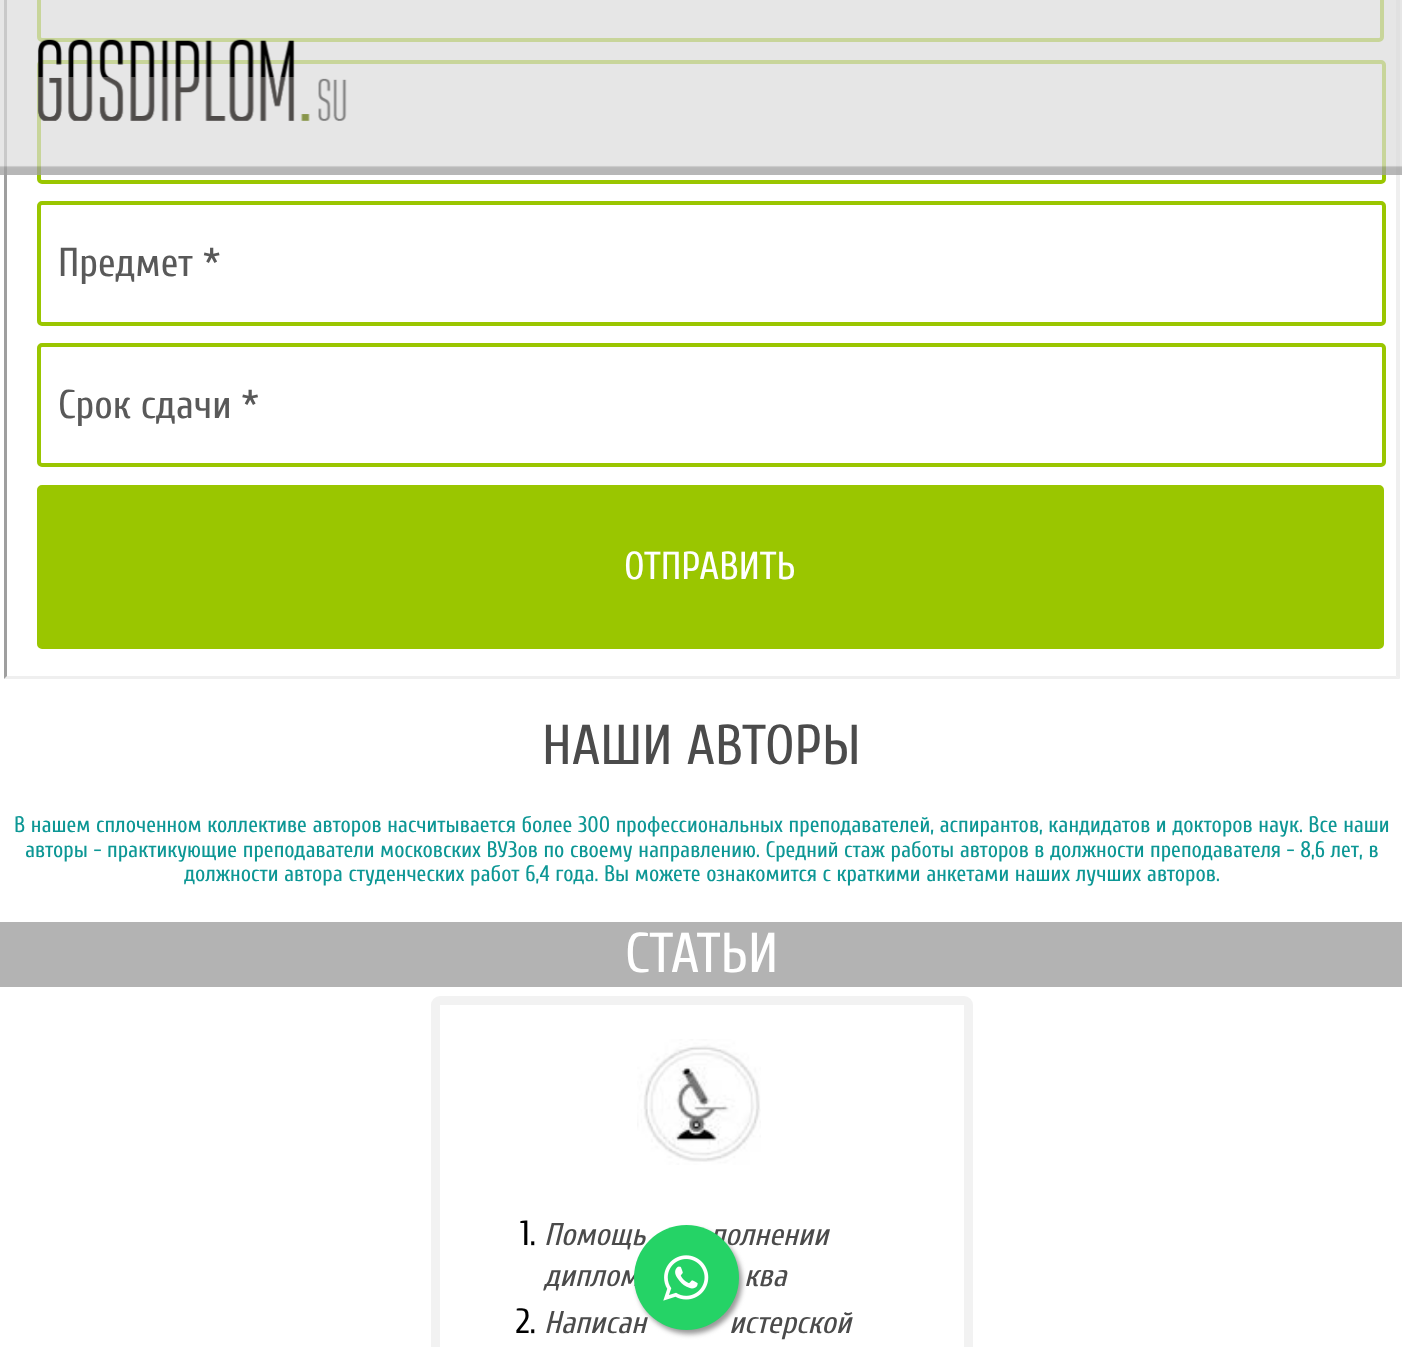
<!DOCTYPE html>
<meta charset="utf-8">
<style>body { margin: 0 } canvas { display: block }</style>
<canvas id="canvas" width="1402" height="1347"></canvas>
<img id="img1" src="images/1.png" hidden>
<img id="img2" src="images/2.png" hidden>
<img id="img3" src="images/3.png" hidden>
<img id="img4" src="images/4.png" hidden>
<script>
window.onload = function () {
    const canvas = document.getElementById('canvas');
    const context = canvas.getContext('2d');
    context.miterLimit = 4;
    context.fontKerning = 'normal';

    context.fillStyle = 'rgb(255, 255, 255)';
    context.fillRect(0, 0, 1402, 1347);
    context.fillStyle = 'rgb(239, 239, 239)';
    context.beginPath();
    context.moveTo(1400, -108);
    context.lineTo(1400, 679);
    context.lineTo(1396, 676);
    context.lineTo(1396, -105);
    context.closePath();
    context.fill();
    context.beginPath();
    context.moveTo(1400, 679);
    context.lineTo(4, 679);
    context.lineTo(7, 676);
    context.lineTo(1396, 676);
    context.closePath();
    context.fill();
    context.fillStyle = 'rgb(159, 159, 159)';
    context.beginPath();
    context.moveTo(4, 679);
    context.lineTo(4, -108);
    context.lineTo(7, -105);
    context.lineTo(7, 676);
    context.closePath();
    context.fill();
    context.beginPath();
    context.roundRect(39, -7, 1343, 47, 3);
    context.strokeStyle = 'rgb(154, 198, 0)';
    context.lineWidth = 4;
    context.stroke();
    context.beginPath();
    context.roundRect(39, 62, 1345, 120, 3);
    context.stroke();
    context.drawImage(document.getElementById('img1'), 0, 0, 1402, 175);
    context.drawImage(document.getElementById('img2'), 37, 39, 310, 82);
    context.beginPath();
    context.roundRect(39, 203, 1345, 121, 3);
    context.stroke();
    context.beginPath();
    context.roundRect(39, 345, 1345, 120, 3);
    context.stroke();
    context.fillStyle = 'rgb(154, 198, 0)';
    context.beginPath();
    context.roundRect(39, 487, 1343, 160, 3);
    context.fill();
    context.stroke();
    context.fillStyle = 'rgb(179, 179, 179)';
    context.fillRect(0, 922, 1402, 65);
    context.beginPath();
    context.roundRect(435.5, 1000.5, 533, 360, 4.5);
    context.strokeStyle = 'rgb(242, 242, 242)';
    context.lineWidth = 9;
    context.stroke();
    context.drawImage(document.getElementById('img3'), 637, 1039, 124, 126);
    context.fillStyle = 'rgb(153, 153, 153)';
    context.filter = 'blur(2.5px)';
    context.beginPath();
    context.roundRect(637, 1229, 105, 105, 52.5);
    context.fill();
    context.filter = 'none';
    context.font = '40.25px Cuprum';
    context.fillStyle = 'rgb(89, 89, 89)';
    context.fillText('Предмет *', 58, 276);
    context.fillText('Срок сдачи *', 58, 418);
    context.font = '39px Cuprum';
    context.fillStyle = 'rgb(255, 255, 255)';
    context.fillText('ОТПРАВИТЬ', 624, 579);
    context.font = '56px Cuprum';
    context.fillStyle = 'rgb(75, 75, 75)';
    context.fillText('НАШИ АВТОРЫ', 542, 764);
    context.font = '22.4px Cuprum';
    context.fillStyle = 'rgb(13, 151, 149)';
    context.fillText('В нашем сплоченном коллективе авторов насчитывается более 300 профессиональных преподавателей, аспирантов, кандидатов и докторов наук. Все наши', 14, 832);
    context.fillText('авторы - практикующие преподаватели московских ВУЗов по своему направлению. Средний стаж работы авторов в должности преподавателя - 8,6 лет, в', 25, 857);
    context.fillText('должности автора студенческих работ 6,4 года. Вы можете ознакомится с краткими анкетами наших лучших авторов.', 184, 881);
    context.font = '56px Cuprum';
    context.fillStyle = 'rgb(255, 255, 255)';
    context.fillText('СТАТЬИ', 625, 972);
    context.font = '35px Cuprum';
    context.fillStyle = 'rgb(0, 0, 0)';
    context.fillText('1.', 520, 1245);
    context.font = 'italic 31.5px Cuprum';
    context.fillStyle = 'rgb(75, 75, 75)';
    context.fillText('Помощь', 544, 1245);
    context.fillText('полнении', 710, 1245);
    context.fillText('диплом', 544, 1286);
    context.fillText('ква', 744, 1286);
    context.font = '35px Cuprum';
    context.fillStyle = 'rgb(0, 0, 0)';
    context.fillText('2.', 516, 1333);
    context.font = 'italic 31.5px Cuprum';
    context.fillStyle = 'rgb(75, 75, 75)';
    context.fillText('Написан', 544, 1333);
    context.fillText('истерской', 729, 1333);
    context.fillStyle = 'rgb(37, 211, 102)';
    context.beginPath();
    context.arc(686.5, 1277.5, 52.5, 0, 2 * Math.PI);
    context.fill();
    context.drawImage(document.getElementById('img4'), 663, 1255, 46, 46);
};
</script>
